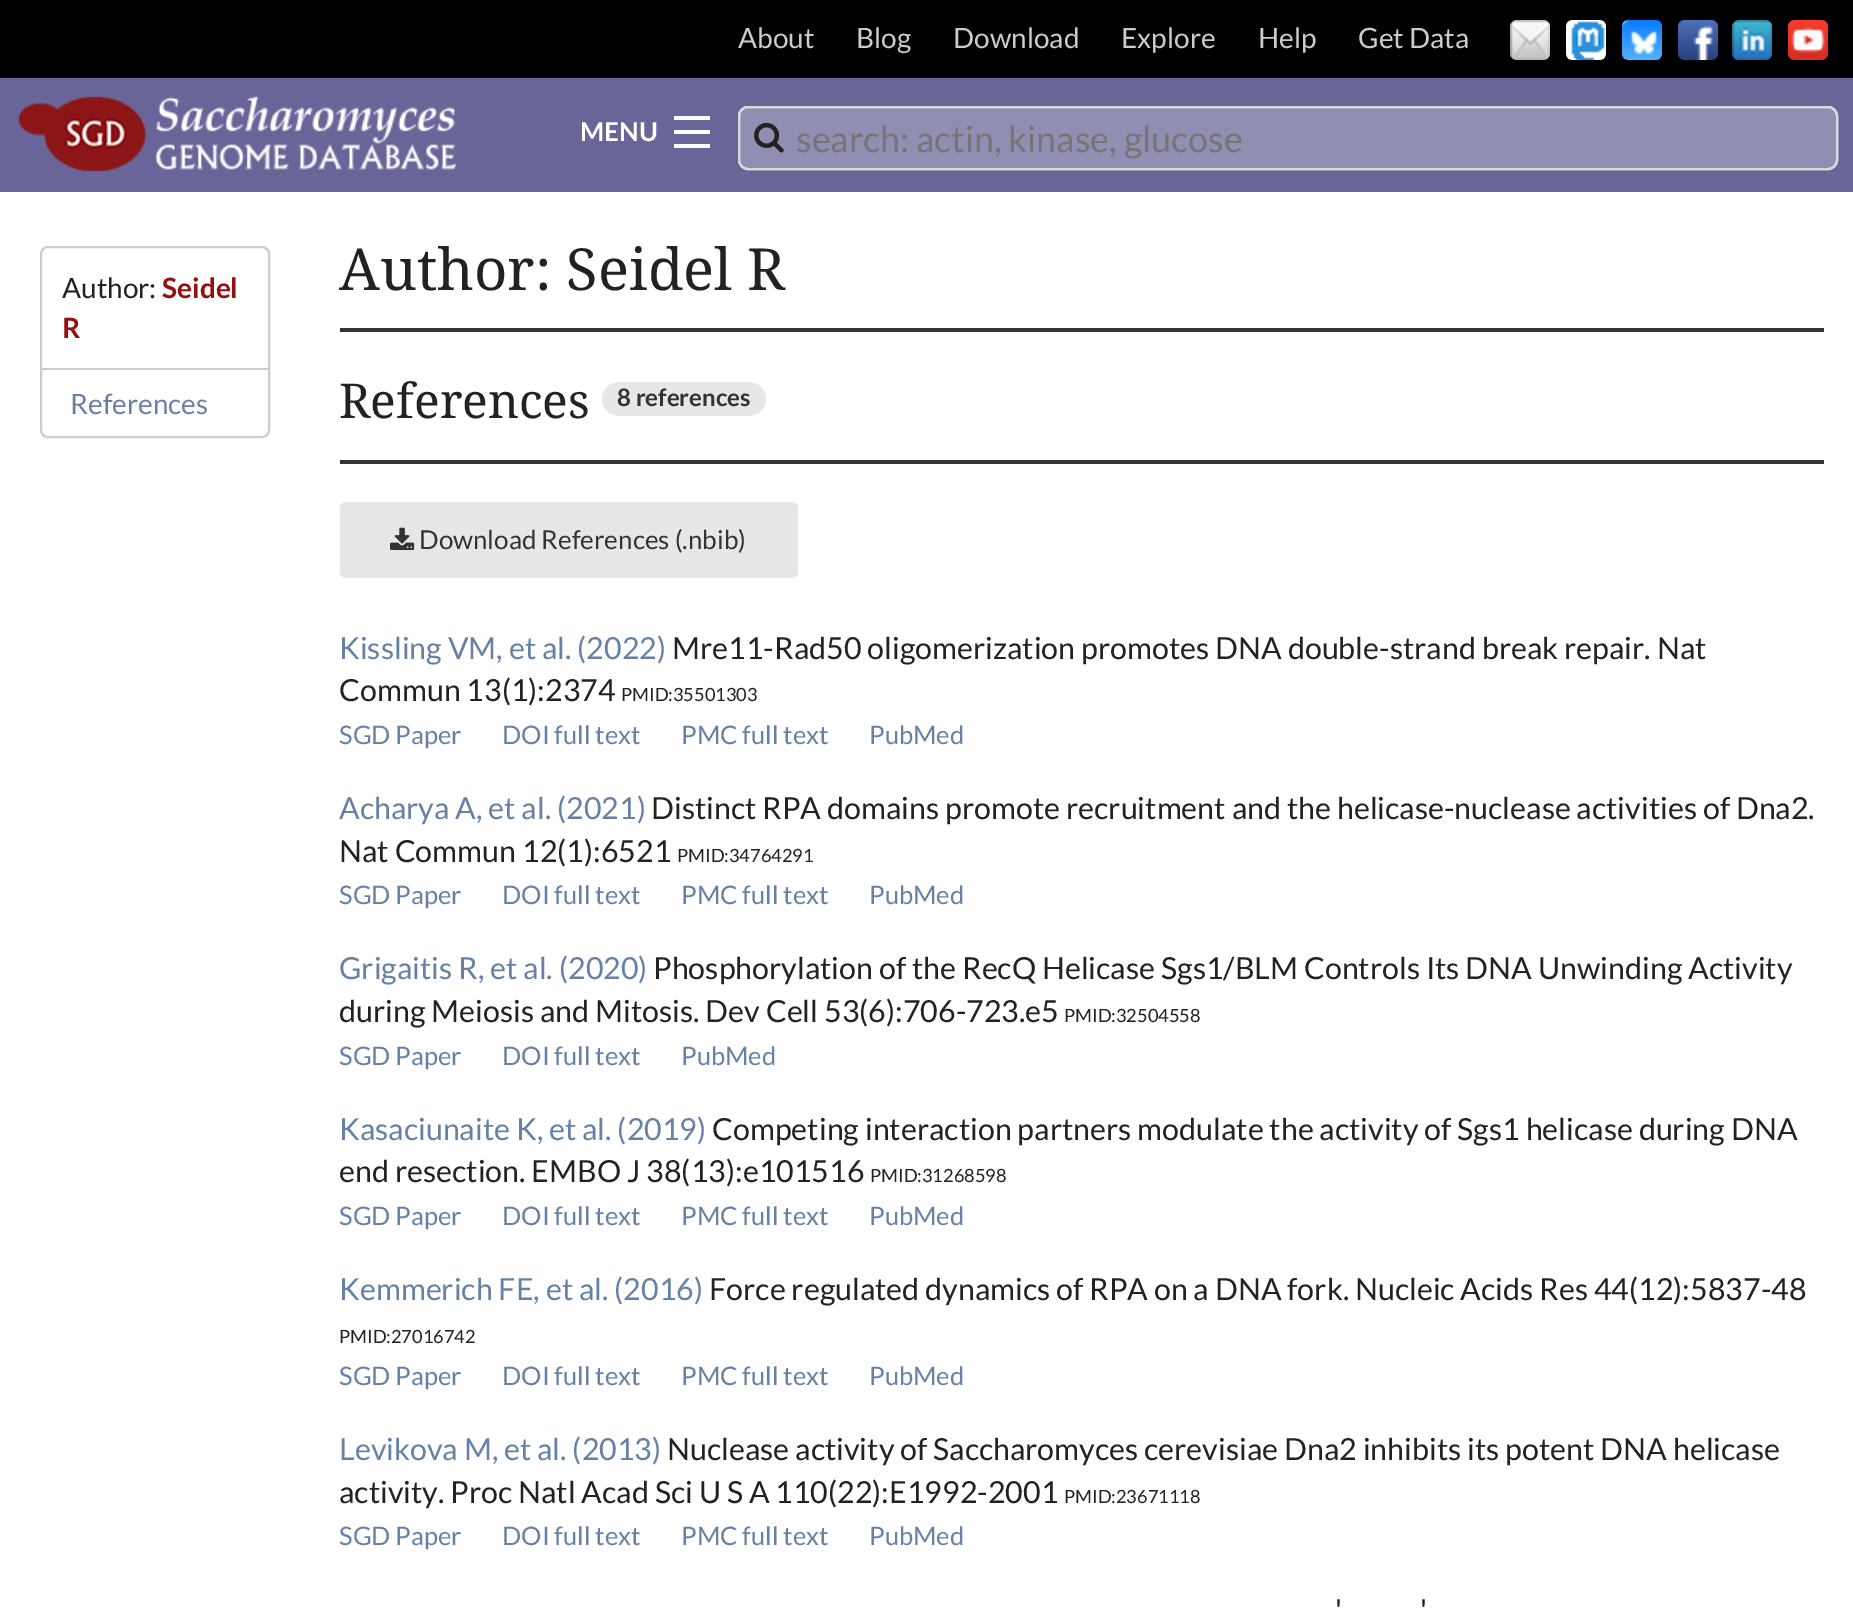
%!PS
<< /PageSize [1853 1613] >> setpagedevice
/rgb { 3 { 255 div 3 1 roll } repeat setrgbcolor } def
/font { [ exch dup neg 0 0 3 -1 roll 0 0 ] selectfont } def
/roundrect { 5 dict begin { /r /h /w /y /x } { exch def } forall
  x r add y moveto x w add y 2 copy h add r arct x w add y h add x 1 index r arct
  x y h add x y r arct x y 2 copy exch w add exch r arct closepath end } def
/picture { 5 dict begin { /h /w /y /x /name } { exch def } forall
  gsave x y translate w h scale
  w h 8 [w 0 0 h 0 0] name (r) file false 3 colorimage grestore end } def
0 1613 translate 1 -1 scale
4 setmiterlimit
255 255 255 rgb
0 0 1853 1613 rectfill
0 0 0 rgb
0 0 1853 78 rectfill
(img/1.rgb) 1510 20 40 40 picture
(img/2.rgb) 1566 20 40 40 picture
(img/3.rgb) 1622 20 40 40 picture
(img/4.rgb) 1678 20 40 40 picture
(img/5.rgb) 1732 20 40 40 picture
(img/6.rgb) 1788 20 40 40 picture
105 101 153 rgb
0 78 1853 114 rectfill
(img/7.rgb) 18 95 438 77 picture
[
  [674 144 36 4 255 255 255]
  [674 130 36 4 255 255 255]
  [674 116 36 4 255 255 255]
] { aload pop rgb rectfill } forall
145 142 179 rgb
739 107 1098 62 9 roundrect gsave fill grestore
217 217 217 rgb
2 setlinewidth
stroke
739 107 1098 62 9 roundrect stroke
(img/8.rgb) 754 122 30 31 picture
204 204 204 rgb
41 247 228 190 7 roundrect stroke
42 368 226 2 rectfill
51 51 51 rgb
340 328 1484 4 rectfill
231 231 231 rgb
602 382 164 34 17 roundrect fill
51 51 51 rgb
340 460 1484 4 rectfill
231 231 231 rgb
340 502 458 76 6 roundrect fill
(img/9.rgb) 390 527 25 23 picture
/Lato-Regular 28 font
204 204 204 rgb
[
  [(About) 738 48]
  [(Blog) 856 48]
  [(Download) 953 48]
  [(Explore) 1121 48]
  [(Help) 1258 48]
  [(Get Data) 1358 48]
] { aload pop moveto show } forall
/Lato-Bold 26 font
255 255 255 rgb
580 141 moveto (MENU) show
/Lato-Regular 36 font
117 117 117 rgb
796 152 moveto (search: actin, kinase, glucose) show
/Lato-Regular 28 font
34 34 34 rgb
62 298 moveto (Author:) show
/Lato-Bold 28 font
152 13 13 rgb
162 298 moveto (Seidel) show
62 338 moveto (R) show
/Lato-Regular 28 font
101 130 166 rgb
70 414 moveto (References) show
/DroidSerif-Regular 58 font
34 34 34 rgb
339 290 moveto (Author: Seidel R) show
/DroidSerif-Regular 48 font
339 418 moveto (References) show
/Lato-Bold 24 font
51 51 51 rgb
617 406 moveto (8 references) show
/Lato-Regular 26 font
419 549 moveto (Download References \(.nbib\)) show
/Lato-Regular 30.4 font
101 130 166 rgb
339 659 moveto (Kissling VM, et al. \(2022\)) show
34 34 34 rgb
672 659 moveto (Mre11-Rad50 oligomerization promotes DNA double-strand break repair. Nat) show
339 701 moveto (Commun 13\(1\):2374) show
/Lato-Regular 18.25 font
621 701 moveto (PMID:35501303) show
/Lato-Regular 25.5 font
101 130 166 rgb
[
  [(SGD Paper) 339 744]
  [(DOI full text) 502 744]
  [(PMC full text) 681 744]
  [(PubMed) 869 744]
] { aload pop moveto show } forall
/Lato-Regular 30.4 font
339 819 moveto (Acharya A, et al. \(2021\)) show
34 34 34 rgb
651 819 moveto (Distinct RPA domains promote recruitment and the helicase-nuclease activities of Dna2.) show
339 862 moveto (Nat Commun 12\(1\):6521) show
/Lato-Regular 18.25 font
677 862 moveto (PMID:34764291) show
/Lato-Regular 25.5 font
101 130 166 rgb
[
  [(SGD Paper) 339 904]
  [(DOI full text) 502 904]
  [(PMC full text) 681 904]
  [(PubMed) 869 904]
] { aload pop moveto show } forall
/Lato-Regular 30.4 font
339 979 moveto (Grigaitis R, et al. \(2020\)) show
34 34 34 rgb
653 979 moveto (Phosphorylation of the RecQ Helicase Sgs1/BLM Controls Its DNA Unwinding Activity) show
339 1022 moveto (during Meiosis and Mitosis. Dev Cell 53\(6\):706-723.e5) show
/Lato-Regular 18.25 font
1064 1022 moveto (PMID:32504558) show
/Lato-Regular 25.5 font
101 130 166 rgb
[
  [(SGD Paper) 339 1065]
  [(DOI full text) 502 1065]
  [(PubMed) 681 1065]
] { aload pop moveto show } forall
/Lato-Regular 30.4 font
339 1140 moveto (Kasaciunaite K, et al. \(2019\)) show
34 34 34 rgb
712 1140 moveto (Competing interaction partners modulate the activity of Sgs1 helicase during DNA) show
339 1182 moveto (end resection. EMBO J 38\(13\):e101516) show
/Lato-Regular 18.25 font
870 1182 moveto (PMID:31268598) show
/Lato-Regular 25.5 font
101 130 166 rgb
[
  [(SGD Paper) 339 1225]
  [(DOI full text) 502 1225]
  [(PMC full text) 681 1225]
  [(PubMed) 869 1225]
] { aload pop moveto show } forall
/Lato-Regular 30.4 font
339 1300 moveto (Kemmerich FE, et al. \(2016\)) show
34 34 34 rgb
709 1300 moveto (Force regulated dynamics of RPA on a DNA fork. Nucleic Acids Res 44\(12\):5837-48) show
/Lato-Regular 18.25 font
339 1343 moveto (PMID:27016742) show
/Lato-Regular 25.5 font
101 130 166 rgb
[
  [(SGD Paper) 339 1385]
  [(DOI full text) 502 1385]
  [(PMC full text) 681 1385]
  [(PubMed) 869 1385]
] { aload pop moveto show } forall
/Lato-Regular 30.4 font
339 1460 moveto (Levikova M, et al. \(2013\)) show
34 34 34 rgb
667 1460 moveto (Nuclease activity of Saccharomyces cerevisiae Dna2 inhibits its potent DNA helicase) show
339 1503 moveto (activity. Proc Natl Acad Sci U S A 110\(22\):E1992-2001) show
/Lato-Regular 18.25 font
1064 1503 moveto (PMID:23671118) show
/Lato-Regular 25.5 font
101 130 166 rgb
[
  [(SGD Paper) 339 1545]
  [(DOI full text) 502 1545]
  [(PMC full text) 681 1545]
  [(PubMed) 869 1545]
] { aload pop moveto show } forall
/Lato-Regular 30.4 font
34 34 34 rgb
1335 1621 moveto (') show
1420 1621 moveto (') show
showpage
